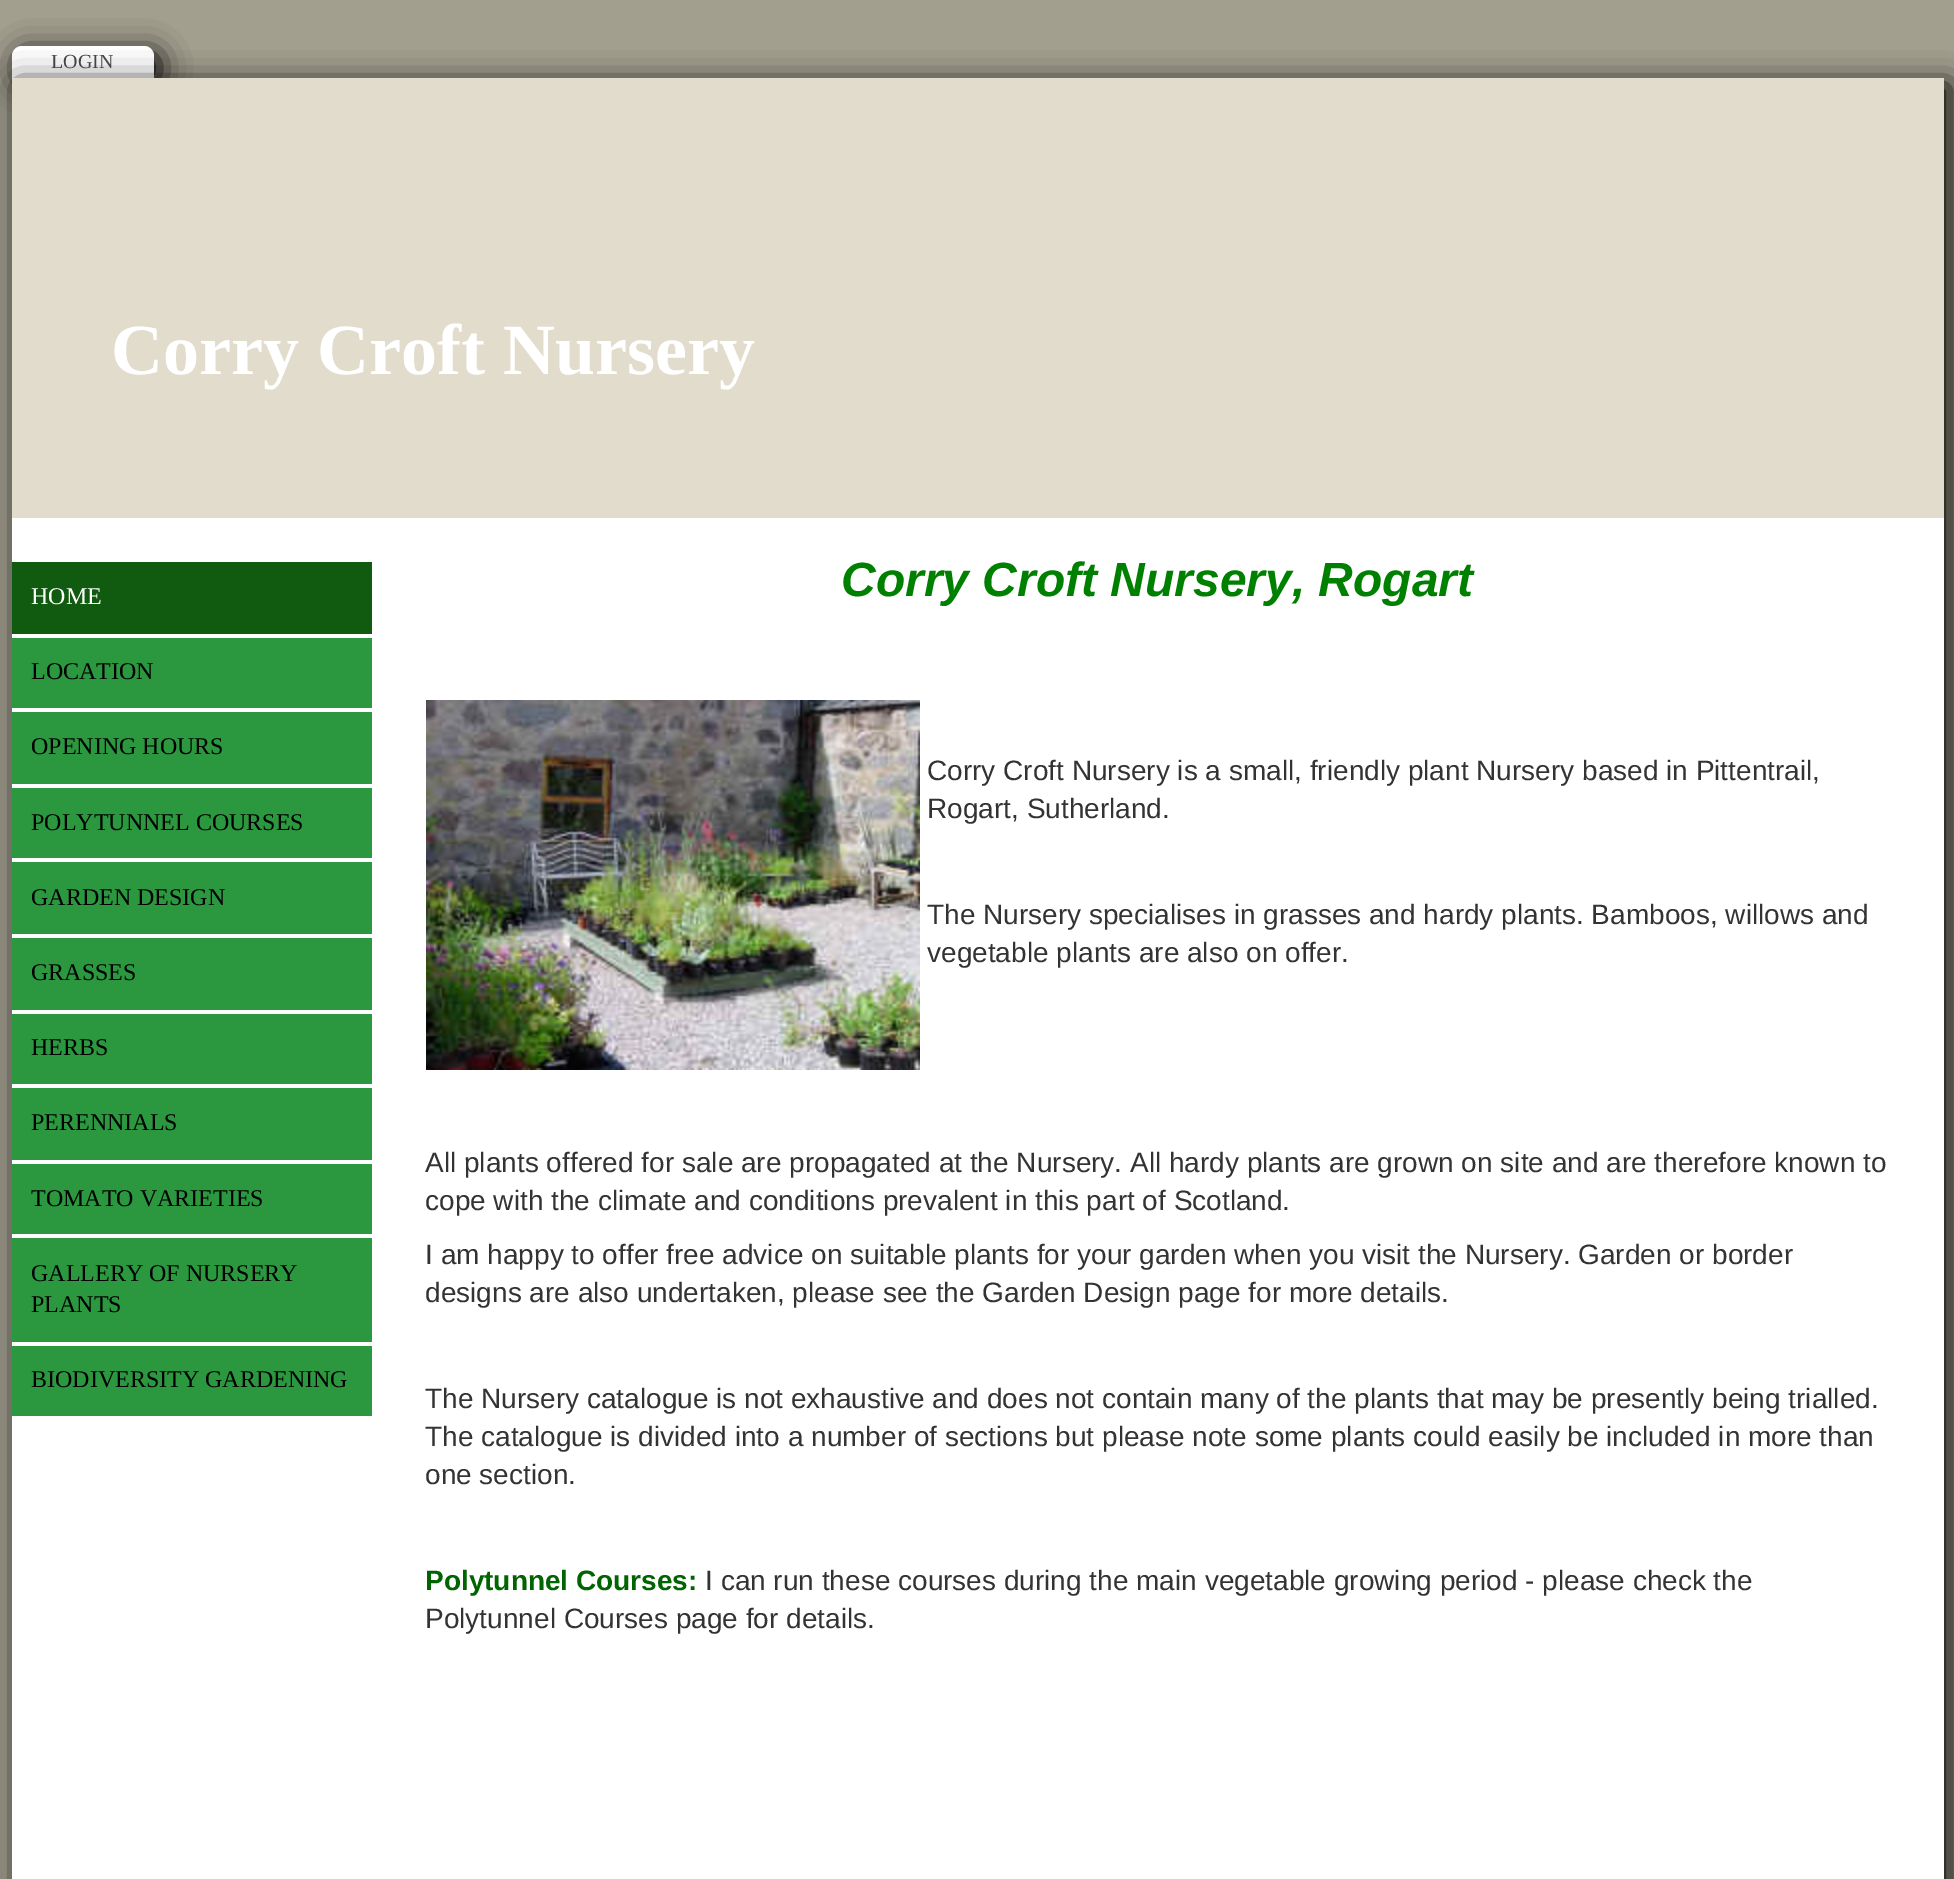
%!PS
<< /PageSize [1954 1879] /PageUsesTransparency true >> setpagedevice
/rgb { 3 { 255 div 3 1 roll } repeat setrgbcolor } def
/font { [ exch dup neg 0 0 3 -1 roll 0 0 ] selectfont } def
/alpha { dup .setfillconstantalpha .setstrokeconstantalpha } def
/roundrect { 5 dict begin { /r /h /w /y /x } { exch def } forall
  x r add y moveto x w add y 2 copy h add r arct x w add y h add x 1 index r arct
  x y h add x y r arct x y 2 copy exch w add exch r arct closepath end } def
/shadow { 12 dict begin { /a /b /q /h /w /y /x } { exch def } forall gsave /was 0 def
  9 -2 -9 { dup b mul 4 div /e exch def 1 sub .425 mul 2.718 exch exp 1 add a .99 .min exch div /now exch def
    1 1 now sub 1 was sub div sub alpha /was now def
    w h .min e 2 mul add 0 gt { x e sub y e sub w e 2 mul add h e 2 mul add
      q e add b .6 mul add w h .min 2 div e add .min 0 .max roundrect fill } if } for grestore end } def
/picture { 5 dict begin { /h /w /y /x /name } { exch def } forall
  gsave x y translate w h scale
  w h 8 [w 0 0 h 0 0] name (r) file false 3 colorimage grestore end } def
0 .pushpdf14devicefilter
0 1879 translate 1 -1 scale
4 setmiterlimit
162 159 142 rgb
0 0 1954 1879 rectfill
0 0 0 rgb
18 52 142 32 10 15 1 shadow
255 255 255 rgb
22 46 moveto 144 46 lineto 149.5 46 154 50.5 154 56 curveto 154 78 lineto 12 78 lineto 12 56 lineto 12 50.5 16.5 46 22 46 curveto closepath fill
0 0 0 rgb
18 84 1932 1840 0 15 1 shadow
[
  [12 518 1932 1361 255 255 255]
  [12 78 1932 440 226 220 204]
  [12 562 360 72 16 91 16]
  [12 638 360 70 43 151 63]
  [12 712 360 72 43 151 63]
  [12 788 360 70 43 151 63]
  [12 862 360 72 43 151 63]
  [12 938 360 72 43 151 63]
  [12 1014 360 70 43 151 63]
  [12 1088 360 72 43 151 63]
  [12 1164 360 70 43 151 63]
  [12 1238 360 104 43 151 63]
  [12 1346 360 70 43 151 63]
] { aload pop rgb rectfill } forall
(img/1.rgb) 426 700 494 370 picture
/LiberationSerif-Regular 20 font
68 68 68 rgb
51 68 moveto (LOGIN) show
/LiberationSerif-Bold 72 font
255 255 255 rgb
111 374 moveto (Corry Croft Nursery) show
/LiberationSerif-Regular 24 font
31 604 moveto (HOME) show
0 0 0 rgb
[
  [(LOCATION) 31 679]
  [(OPENING HOURS) 31 754]
  [(POLYTUNNEL COURSES) 31 830]
  [(GARDEN DESIGN) 31 905]
  [(GRASSES) 31 980]
  [(HERBS) 31 1055]
  [(PERENNIALS) 31 1130]
  [(TOMATO VARIETIES) 31 1206]
  [(GALLERY OF NURSERY) 31 1281]
  [(PLANTS) 31 1312]
  [(BIODIVERSITY GARDENING) 31 1387]
] { aload pop moveto show } forall
/LiberationSans-BoldItalic 48 font
0 128 0 rgb
841 596 moveto (Corry Croft Nursery, Rogart) show
/LiberationSans-Regular 28 font
51 51 51 rgb
[
  [(Corry Croft Nursery is a small, friendly plant Nursery based in Pittentrail,) 927 780]
  [(Rogart, Sutherland.) 927 818]
  [(The Nursery specialises in grasses and hardy plants. Bamboos, willows and) 927 924]
  [(vegetable plants are also on offer.) 927 962]
  [(All plants offered for sale are propagated at the Nursery. All hardy plants are grown on site and are therefore known to) 425 1172]
  [(cope with the climate and conditions prevalent in this part of Scotland.) 425 1210]
  [(I am happy to offer free advice on suitable plants for your garden when you visit the Nursery. Garden or border) 425 1264]
  [(designs are also undertaken, please see the Garden Design page for more details.) 425 1302]
  [(The Nursery catalogue is not exhaustive and does not contain many of the plants that may be presently being trialled.) 425 1408]
  [(The catalogue is divided into a number of sections but please note some plants could easily be included in more than) 425 1446]
  [(one section.) 425 1484]
] { aload pop moveto show } forall
/LiberationSans-Bold 28 font
0 100 0 rgb
425 1590 moveto (Polytunnel Courses:) show
/LiberationSans-Regular 28 font
51 51 51 rgb
705 1590 moveto (I can run these courses during the main vegetable growing period - please check the) show
425 1628 moveto (Polytunnel Courses page for details.) show
.poppdf14devicefilter showpage
